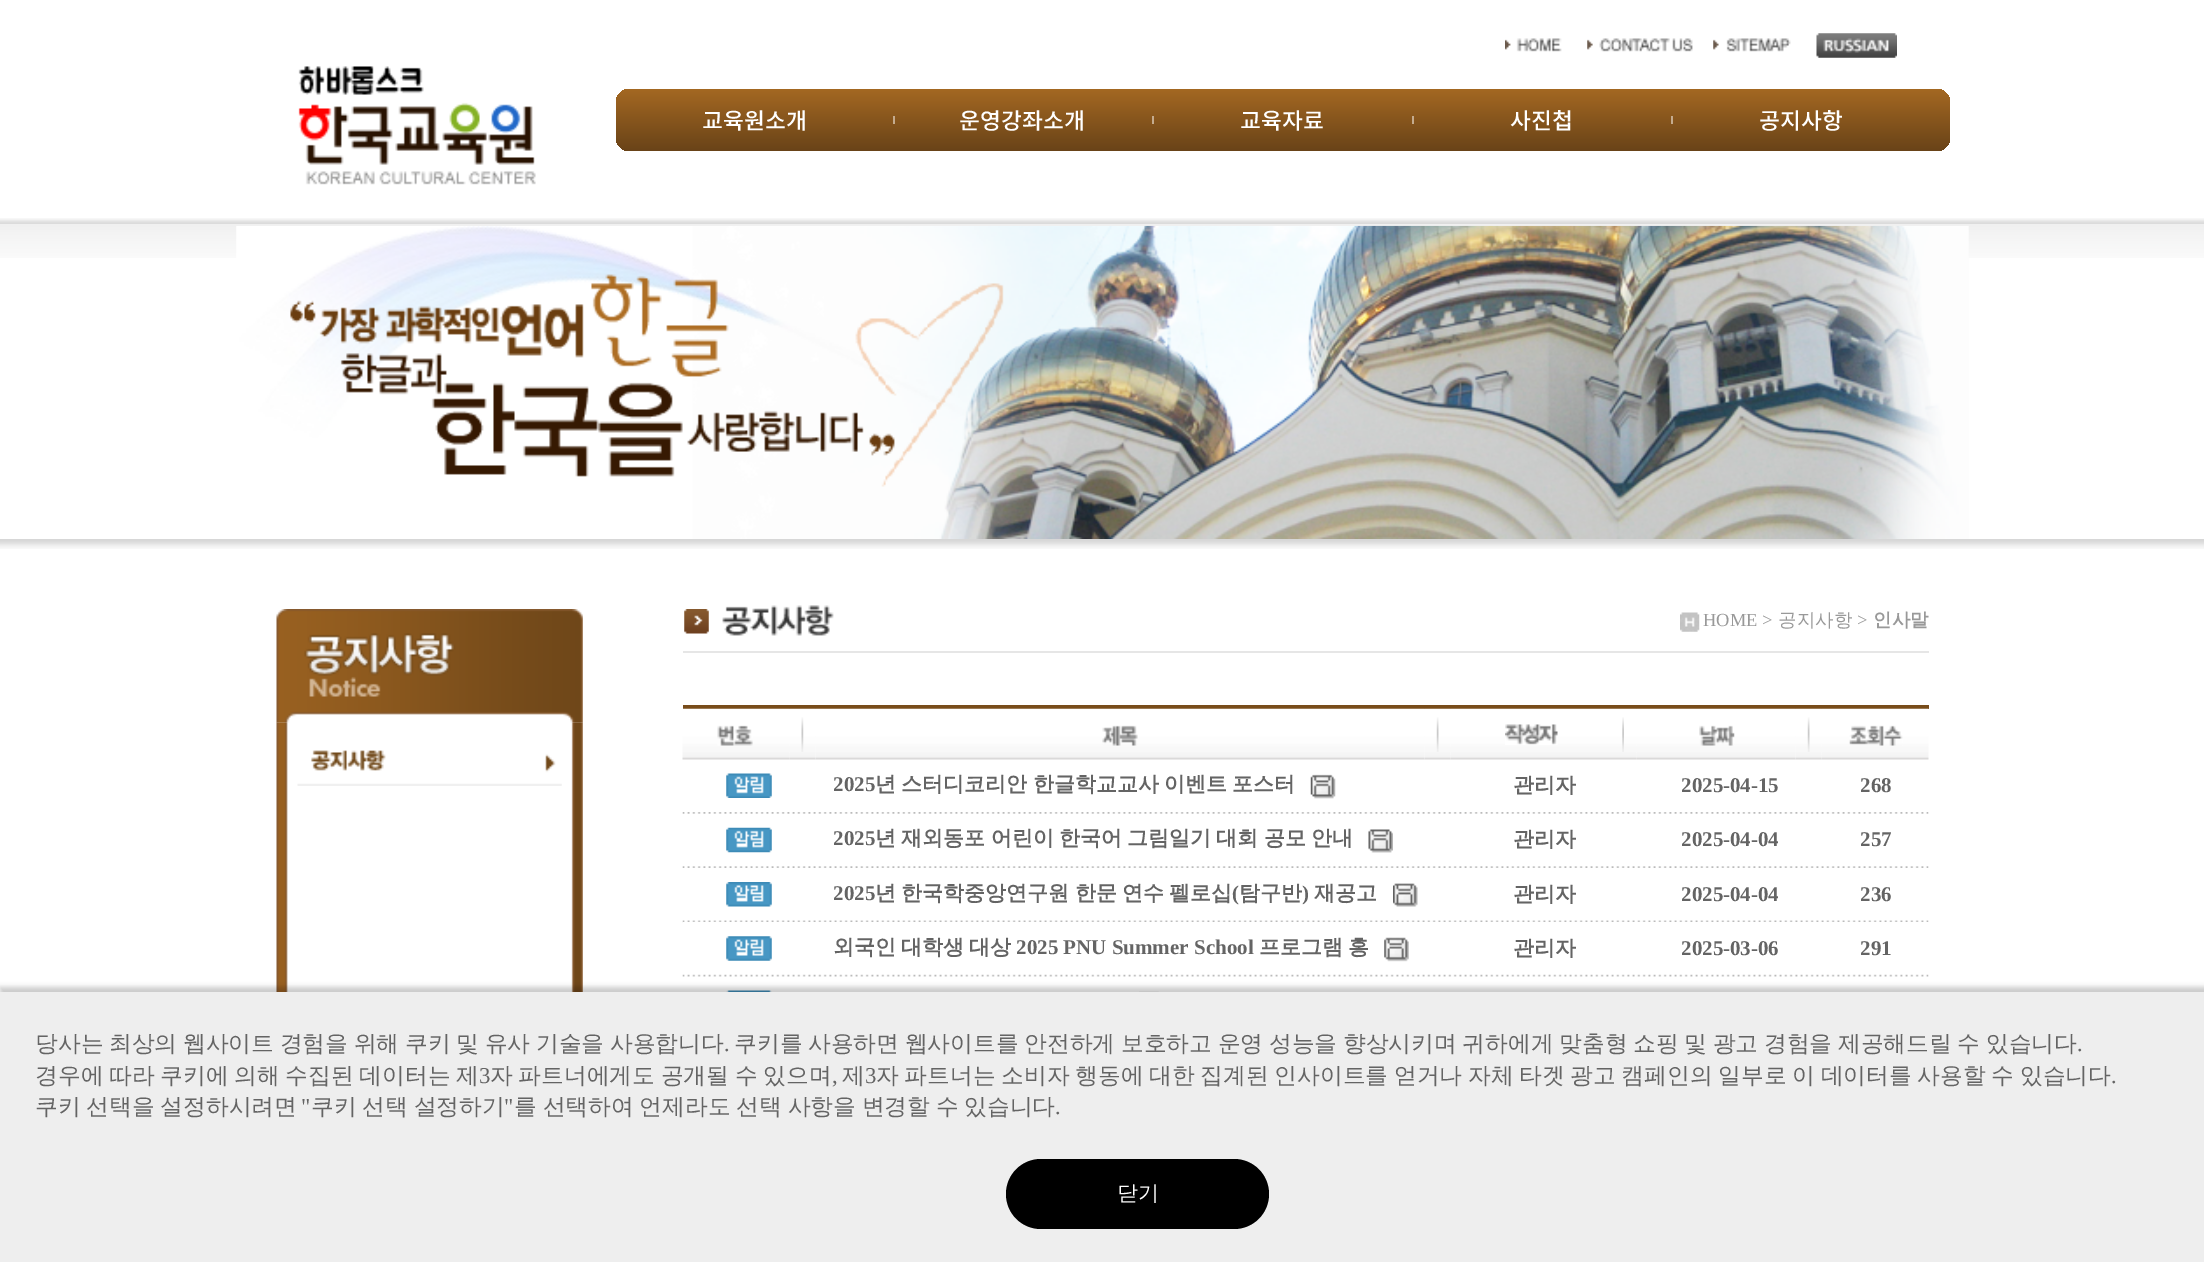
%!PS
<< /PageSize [2204 1262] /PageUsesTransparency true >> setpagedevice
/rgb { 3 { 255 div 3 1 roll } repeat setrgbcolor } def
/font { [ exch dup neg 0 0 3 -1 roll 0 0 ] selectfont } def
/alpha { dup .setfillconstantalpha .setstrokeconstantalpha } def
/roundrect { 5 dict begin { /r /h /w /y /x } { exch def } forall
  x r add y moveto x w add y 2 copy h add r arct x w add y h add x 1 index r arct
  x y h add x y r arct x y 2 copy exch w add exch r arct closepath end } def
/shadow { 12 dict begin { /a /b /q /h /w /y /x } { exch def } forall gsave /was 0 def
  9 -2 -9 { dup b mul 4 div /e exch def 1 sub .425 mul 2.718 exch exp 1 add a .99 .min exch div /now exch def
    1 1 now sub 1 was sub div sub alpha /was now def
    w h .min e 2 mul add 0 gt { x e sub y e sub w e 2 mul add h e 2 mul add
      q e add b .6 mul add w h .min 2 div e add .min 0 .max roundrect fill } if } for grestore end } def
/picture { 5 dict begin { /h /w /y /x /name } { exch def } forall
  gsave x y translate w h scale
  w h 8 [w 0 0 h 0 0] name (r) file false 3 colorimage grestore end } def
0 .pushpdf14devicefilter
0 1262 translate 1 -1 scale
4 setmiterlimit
255 255 255 rgb
0 0 2204 1262 rectfill
(img/1.rgb) 0 218 2204 6 picture
(img/2.rgb) 298 66 238 119 picture
(img/3.rgb) 1505 38 57 14 picture
(img/4.rgb) 1587 38 106 14 picture
(img/5.rgb) 1713 38 78 14 picture
(img/6.rgb) 1816 33 81 25 picture
gsave 616 89 1334 62 14 roundrect clip newpath
<< /ShadingType 2 /ColorSpace /DeviceRGB /Coords [1283 89 1283 151] /Extend [true true] /Function << /FunctionType 2 /Domain [0 1] /C0 [0.643 0.408 0.133] /C1 [0.412 0.263 0.094] /N 1 >> >> shfill grestore
[
  [893 116 2 8 196 171 142]
  [1152 116 2 8 196 171 142]
  [1412 116 2 8 196 171 142]
  [1671 116 2 8 196 171 142]
] { aload pop rgb rectfill } forall
(img/7.rgb) 0 224 2204 34 picture
(img/8.rgb) 236 225 1733 314 picture
(img/9.rgb) 0 539 2204 10 picture
(img/11.rgb) 276 722 307 270 picture
(img/10.rgb) 276 609 307 114 picture
(img/12.rgb) 297 750 265 36 picture
230 230 230 rgb
683 651 1246 2 rectfill
(img/13.rgb) 684 609 25 25 picture
(img/14.rgb) 722 605 112 31 picture
(img/15.rgb) 1680 612 20 20 picture
120 76 26 rgb
683 705 1246 4 rectfill
(img/16.rgb) 682 708 108 52 picture
(img/17.rgb) 717 725 36 21 picture
(img/18.rgb) 789 708 27 52 picture
(img/19.rgb) 801 717 3 35 picture
(img/20.rgb) 815 708 610 52 picture
(img/21.rgb) 1102 725 36 21 picture
(img/22.rgb) 1424 708 27 52 picture
(img/23.rgb) 1436 717 3 35 picture
(img/24.rgb) 1450 708 160 52 picture
(img/25.rgb) 1505 724 53 21 picture
(img/26.rgb) 1610 708 27 52 picture
(img/27.rgb) 1622 717 2 35 picture
(img/28.rgb) 1636 708 160 52 picture
(img/29.rgb) 1699 725 36 21 picture
(img/22.rgb) 1795 708 27 52 picture
(img/23.rgb) 1807 717 3 35 picture
(img/30.rgb) 1821 708 108 52 picture
(img/31.rgb) 1849 725 54 21 picture
(img/32.rgb) 726 773 46 25 picture
(img/33.rgb) 1310 774 26 25 picture
(img/34.rgb) 682 812 1247 2 picture
(img/35.rgb) 726 827 46 26 picture
(img/36.rgb) 1368 829 25 24 picture
(img/37.rgb) 682 866 1247 2 picture
(img/38.rgb) 726 882 46 25 picture
(img/39.rgb) 1393 883 25 24 picture
(img/40.rgb) 682 920 1247 3 picture
255 255 255 rgb
683 922 1246 1 rectfill
(img/41.rgb) 726 936 46 25 picture
(img/42.rgb) 1384 937 25 25 picture
(img/43.rgb) 682 974 1247 3 picture
(img/44.rgb) 726 990 46 2 picture
(img/45.rgb) 1139 991 20 1 picture
0 0 0 rgb
0 987 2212 271 0 2.5 0.2 shadow
238 238 238 rgb
0 992 2204 270 rectfill
0 0 0 rgb
1006 1159 263 70 35 roundrect fill
/NotoSansKR-Medium 22.75 font
255 255 255 rgb
[
  [(교육원소개) 702 129]
  [(운영강좌소개) 959 129]
  [(교육자료) 1240 129]
  [(사진첩) 1510 129]
  [(공지사항) 1759 129]
] { aload pop moveto show } forall
/LiberationSerif-Regular 18.5 font
153 153 153 rgb
1703 626 moveto (HOME >) show
/WenQuanYiZenHei-Medium 18.5 font
1778 626 moveto (공지사항) show
/LiberationSerif-Regular 18.5 font
1857 626 moveto (>) show
/WenQuanYiZenHei-Bold 18.5 font
1873 626 moveto (인사말) show
/LiberationSerif-Bold 21 font
100 100 100 rgb
833 791 moveto (2025) show
/WenQuanYiZenHei-Bold 21 font
875 791 moveto -1 0 32 (년 스터디코리안 한글학교교사 이벤트 포스터) widthshow
1513 792 moveto (관리자) show
/LiberationSerif-Bold 21 font
[
  [(2025-04-15) 1681 792]
  [(268) 1860 792]
  [(2025) 833 845]
] { aload pop moveto show } forall
/WenQuanYiZenHei-Bold 21 font
875 845 moveto -1 0 32 (년 재외동포 어린이 한국어 그림일기 대회 공모 안내) widthshow
1513 846 moveto (관리자) show
/LiberationSerif-Bold 21 font
[
  [(2025-04-04) 1681 846]
  [(257) 1860 846]
  [(2025) 833 900]
] { aload pop moveto show } forall
/WenQuanYiZenHei-Bold 21 font
875 900 moveto -1 0 32 (년 한국학중앙연구원 한문 연수 펠로십) widthshow
/LiberationSerif-Bold 21 font
1232 900 moveto (\() show
/WenQuanYiZenHei-Bold 21 font
1239 900 moveto (탐구반) show
/LiberationSerif-Bold 21 font
1302 900 moveto (\)) show
/WenQuanYiZenHei-Bold 21 font
1314 900 moveto (재공고) show
1513 901 moveto (관리자) show
/LiberationSerif-Bold 21 font
1681 901 moveto (2025-04-04) show
1860 901 moveto (236) show
/WenQuanYiZenHei-Bold 21 font
[
  [(외국인) 833 954]
  [(대학생) 901 954]
  [(대상) 969 954]
] { aload pop moveto show } forall
/LiberationSerif-Bold 21 font
1016 954 moveto (2025 PNU Summer School) show
/WenQuanYiZenHei-Bold 21 font
[
  [(프로그램) 1259 954]
  [(홍) 1348 954]
  [(관리자) 1513 955]
] { aload pop moveto show } forall
/LiberationSerif-Bold 21 font
1681 955 moveto (2025-03-06) show
1860 955 moveto (291) show
/WenQuanYiZenHei-Medium 22.75 font
35 1051 moveto -1.1 0 32 (당사는 최상의 웹사이트 경험을 위해 쿠키 및 유사 기술을 사용합니다) widthshow
/LiberationSerif-Regular 22.75 font
724 1051 moveto (.) show
/WenQuanYiZenHei-Medium 22.75 font
734 1051 moveto -1.1 0 32 (쿠키를 사용하면 웹사이트를 안전하게 보호하고 운영 성능을 향상시키며 귀하에게 맞춤형 쇼핑 및 광고 경험을 제공해드릴 수 있습니다) widthshow
/LiberationSerif-Regular 22.75 font
2077 1051 moveto (.) show
/WenQuanYiZenHei-Medium 22.75 font
35 1083 moveto -1.1 0 32 (경우에 따라 쿠키에 의해 수집된 데이터는 제) widthshow
/LiberationSerif-Regular 22.75 font
479 1083 moveto (3) show
/WenQuanYiZenHei-Medium 22.75 font
490 1083 moveto -1.1 0 32 (자 파트너에게도 공개될 수 있으며) widthshow
/LiberationSerif-Regular 22.75 font
832 1083 moveto (,) show
/WenQuanYiZenHei-Medium 22.75 font
842 1083 moveto (제) show
/LiberationSerif-Regular 22.75 font
865 1083 moveto (3) show
/WenQuanYiZenHei-Medium 22.75 font
876 1083 moveto -1.1 0 32 (자 파트너는 소비자 행동에 대한 집계된 인사이트를 얻거나 자체 타겟 광고 캠페인의 일부로 이 데이터를 사용할 수 있습니다) widthshow
/LiberationSerif-Regular 22.75 font
2111 1083 moveto (.) show
/WenQuanYiZenHei-Medium 22.75 font
35 1114 moveto -1 0 32 (쿠키 선택을 설정하시려면) widthshow
/LiberationSerif-Regular 22.75 font
301 1114 moveto (") show
/WenQuanYiZenHei-Medium 22.75 font
311 1114 moveto -1 0 32 (쿠키 선택 설정하기) widthshow
/LiberationSerif-Regular 22.75 font
504 1114 moveto (") show
/WenQuanYiZenHei-Medium 22.75 font
514 1114 moveto -1 0 32 (를 선택하여 언제라도 선택 사항을 변경할 수 있습니다) widthshow
/LiberationSerif-Regular 22.75 font
1055 1114 moveto (.) show
/WenQuanYiZenHei-Medium 21 font
255 255 255 rgb
1117 1200 moveto (닫기) show
.poppdf14devicefilter showpage
